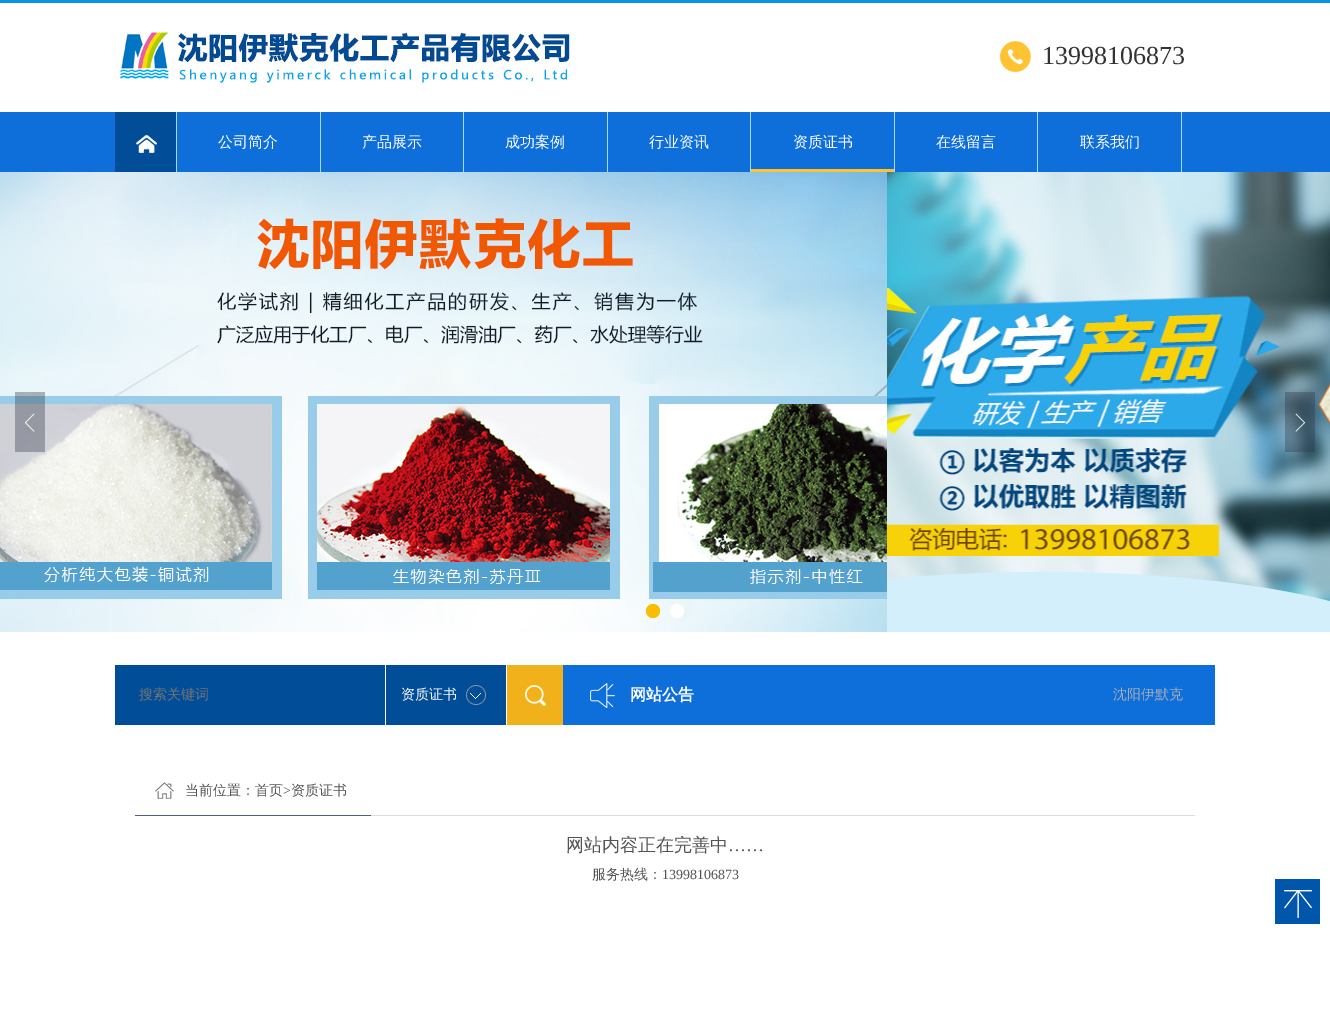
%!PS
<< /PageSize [1330 1034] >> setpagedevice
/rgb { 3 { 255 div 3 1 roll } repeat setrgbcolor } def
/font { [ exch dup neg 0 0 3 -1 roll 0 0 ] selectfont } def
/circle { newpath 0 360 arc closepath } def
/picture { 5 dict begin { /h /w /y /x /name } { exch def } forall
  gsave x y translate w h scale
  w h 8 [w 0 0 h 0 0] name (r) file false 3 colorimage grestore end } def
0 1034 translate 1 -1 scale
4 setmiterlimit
255 255 255 rgb
0 0 1330 1034 rectfill
10 146 232 rgb
0 0 1330 3 rectfill
(img/1.rgb) 115 32 456 53 picture
(img/2.rgb) 1000 41 31 31 picture
14 111 218 rgb
0 112 1330 60 rectfill
162 219 254 rgb
176 112 1 61 rectfill
(img/3.rgb) 115 112 61 60 picture
[
  [320 112 1 61 162 219 254]
  [463 112 1 61 162 219 254]
  [607 112 1 61 162 219 254]
  [750 112 1 61 162 219 254]
  [894 112 1 61 162 219 254]
  [751 169 143 3 255 194 49]
  [1037 112 1 61 162 219 254]
  [1181 112 1 61 162 219 254]
] { aload pop rgb rectfill } forall
(img/4.rgb) 0 172 887 460 picture
(img/5.rgb) 887 172 443 460 picture
(img/6.rgb) 15 392 30 60 picture
(img/7.rgb) 1285 392 30 60 picture
250 190 0 rgb
653 611 7 circle fill
255 255 255 rgb
677 611 7 circle fill
[
  [563 665 652 60 14 111 218]
  [115 665 270 60 1 77 151]
  [386 665 120 60 1 77 151]
] { aload pop rgb rectfill } forall
(img/8.rgb) 466 685 20 20 picture
241 177 26 rgb
507 665 56 60 rectfill
(img/9.rgb) 525 685 21 21 picture
(img/10.rgb) 590 683 25 25 picture
221 221 221 rgb
371 815 824 1 rectfill
(img/11.rgb) 155 782 19 17 picture
79 94 134 rgb
135 815 236 1 rectfill
(img/12.rgb) 1275 879 45 45 picture
/LiberationSerif-Regular 26 font
51 51 51 rgb
1042 64 moveto (13998106873) show
/WenQuanYiZenHei-Medium 15 font
255 255 255 rgb
[
  [(公司简介) 218 147]
  [(产品展示) 362 147]
  [(成功案例) 505 147]
  [(行业资讯) 649 147]
  [(资质证书) 793 147]
  [(在线留言) 936 147]
  [(联系我们) 1080 147]
] { aload pop moveto show } forall
/WenQuanYiZenHei-Medium 14 font
117 117 117 rgb
139 699 moveto (搜索关键词) show
255 255 255 rgb
401 699 moveto (资质证书) show
/WenQuanYiZenHei-Bold 16 font
630 700 moveto (网站公告) show
/WenQuanYiZenHei-Medium 14 font
168 172 182 rgb
1113 699 moveto (沈阳伊默克) show
83 83 83 rgb
185 795 moveto (当前位置：首页) show
/LiberationSerif-Regular 14 font
283 795 moveto (>) show
/WenQuanYiZenHei-Medium 14 font
291 795 moveto (资质证书) show
/WenQuanYiZenHei-Medium 18 font
566 851 moveto (网站内容正在完善中) show
/LiberationSerif-Regular 18 font
728 851 moveto (……) show
/WenQuanYiZenHei-Medium 14 font
592 879 moveto (服务热线：) show
/LiberationSerif-Regular 14 font
662 879 moveto (13998106873) show
showpage
